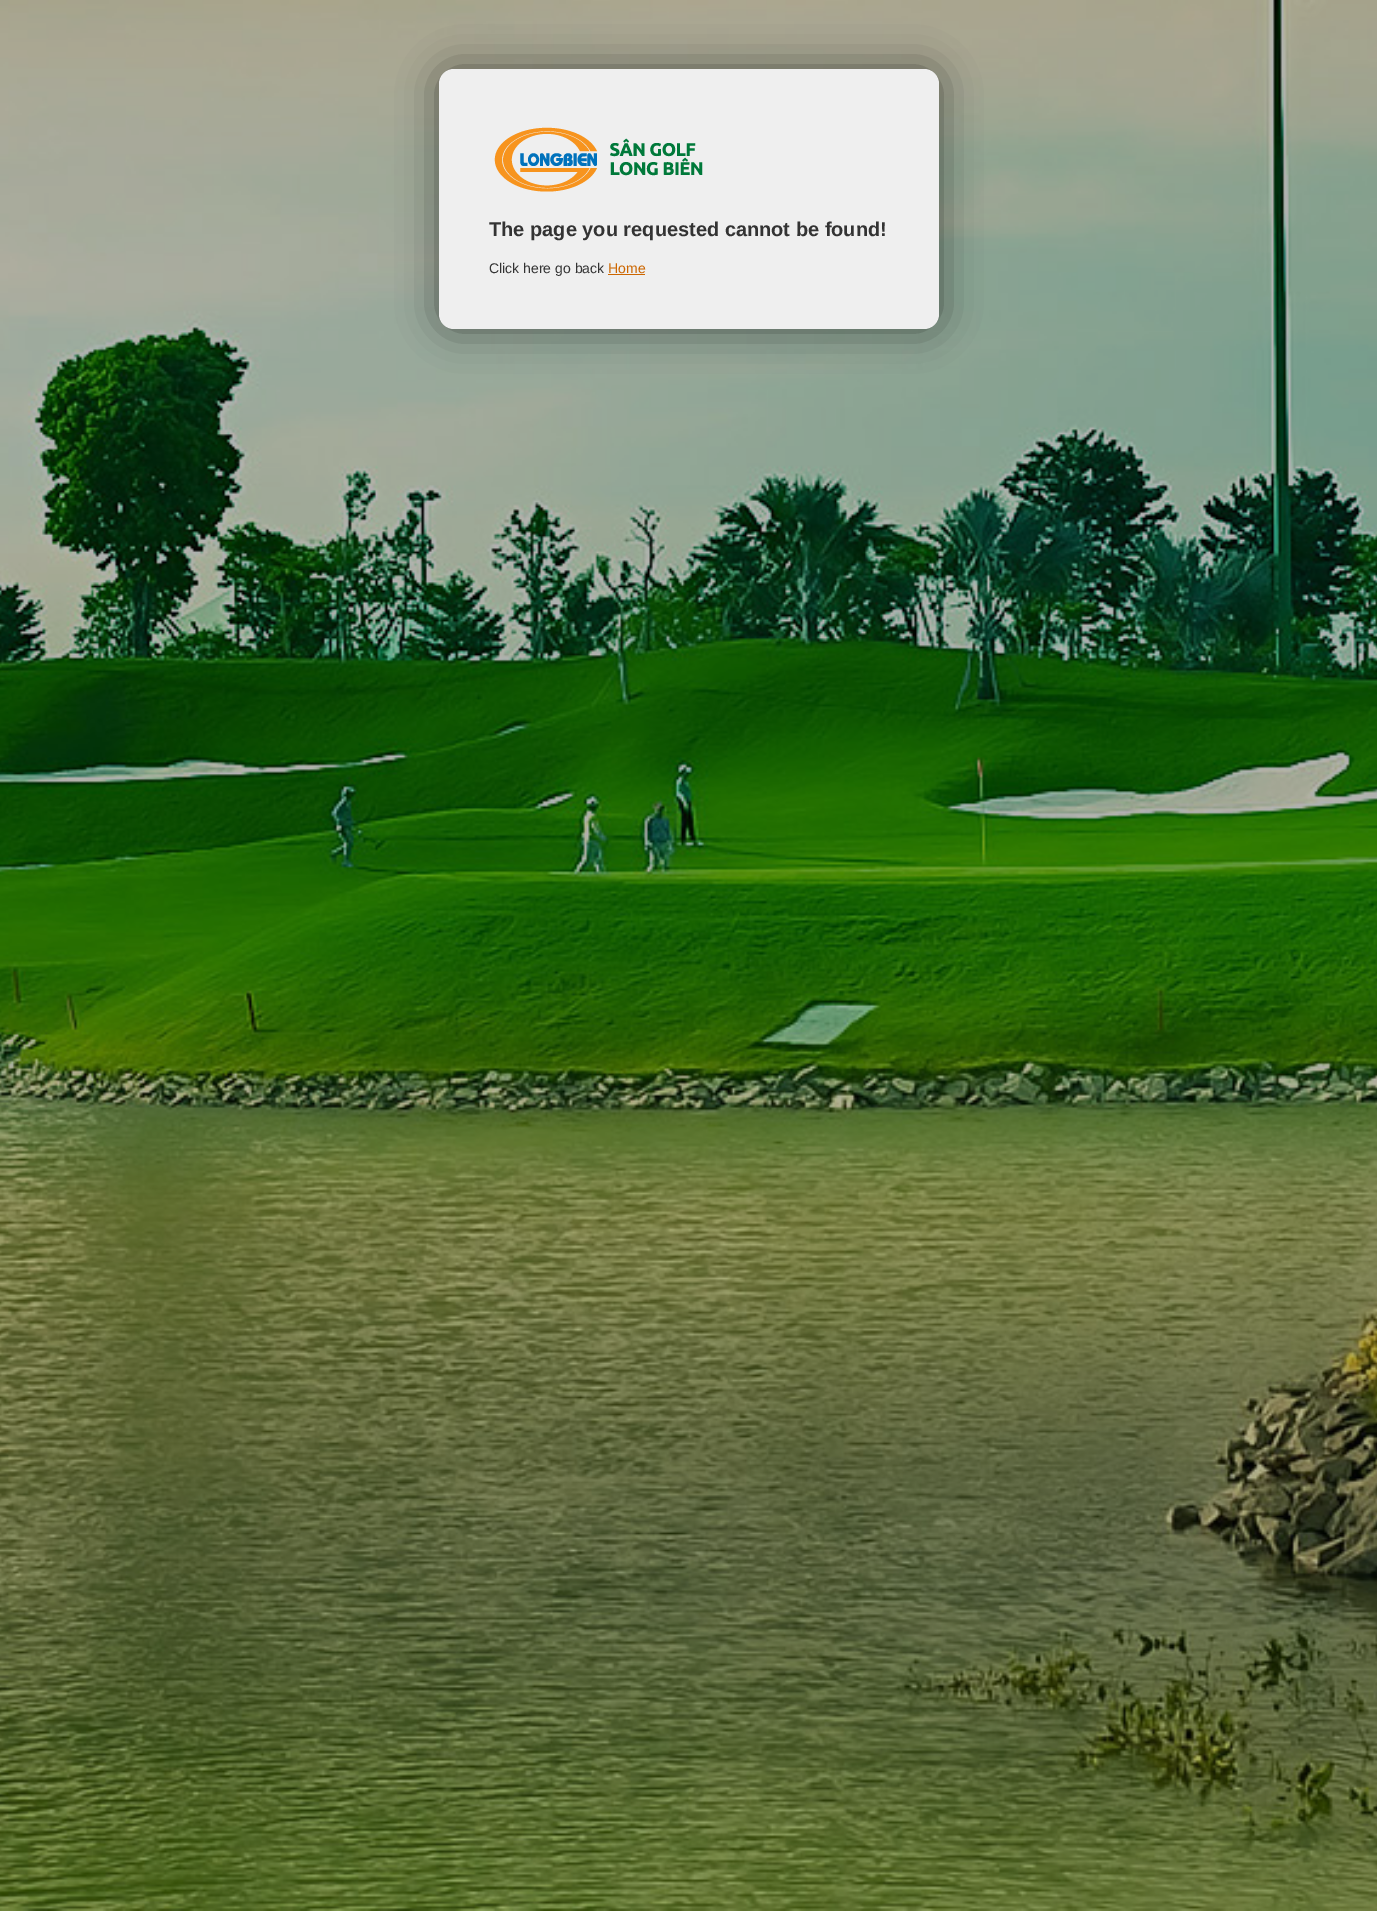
%!PS
<< /PageSize [1377 1911] /PageUsesTransparency true >> setpagedevice
/rgb { 3 { 255 div 3 1 roll } repeat setrgbcolor } def
/font { [ exch dup neg 0 0 3 -1 roll 0 0 ] selectfont } def
/alpha { dup .setfillconstantalpha .setstrokeconstantalpha } def
/roundrect { 5 dict begin { /r /h /w /y /x } { exch def } forall
  x r add y moveto x w add y 2 copy h add r arct x w add y h add x 1 index r arct
  x y h add x y r arct x y 2 copy exch w add exch r arct closepath end } def
/shadow { 12 dict begin { /a /b /q /h /w /y /x } { exch def } forall gsave /was 0 def
  9 -2 -9 { dup b mul 4 div /e exch def 1 sub .425 mul 2.718 exch exp 1 add a .99 .min exch div /now exch def
    1 1 now sub 1 was sub div sub alpha /was now def
    w h .min e 2 mul add 0 gt { x e sub y e sub w e 2 mul add h e 2 mul add
      q e add b .6 mul add w h .min 2 div e add .min 0 .max roundrect fill } if } for grestore end } def
/picture { 5 dict begin { /h /w /y /x /name } { exch def } forall
  gsave x y translate w h scale
  w h 8 [w 0 0 h 0 0] name (r) file false 3 colorimage grestore end } def
0 .pushpdf14devicefilter
0 1911 translate 1 -1 scale
4 setmiterlimit
255 255 255 rgb
0 0 1377 1911 rectfill
(img/1.rgb) 0 0 1377 1911 picture
0 0 0 rgb
439 69 500 260 15 20 0.5 shadow
239 239 239 rgb
439 69 500 260 15 roundrect fill
(img/2.rgb) 494 127 209 65 picture
204 102 0 rgb
608 274 37 1 rectfill
/LiberationSans-Bold 20 font
51 51 51 rgb
489 236 moveto (The page you requested cannot be found!) show
/LiberationSans-Regular 14 font
489 273 moveto (Click here go back) show
204 102 0 rgb
608 273 moveto (Home) show
.poppdf14devicefilter showpage
